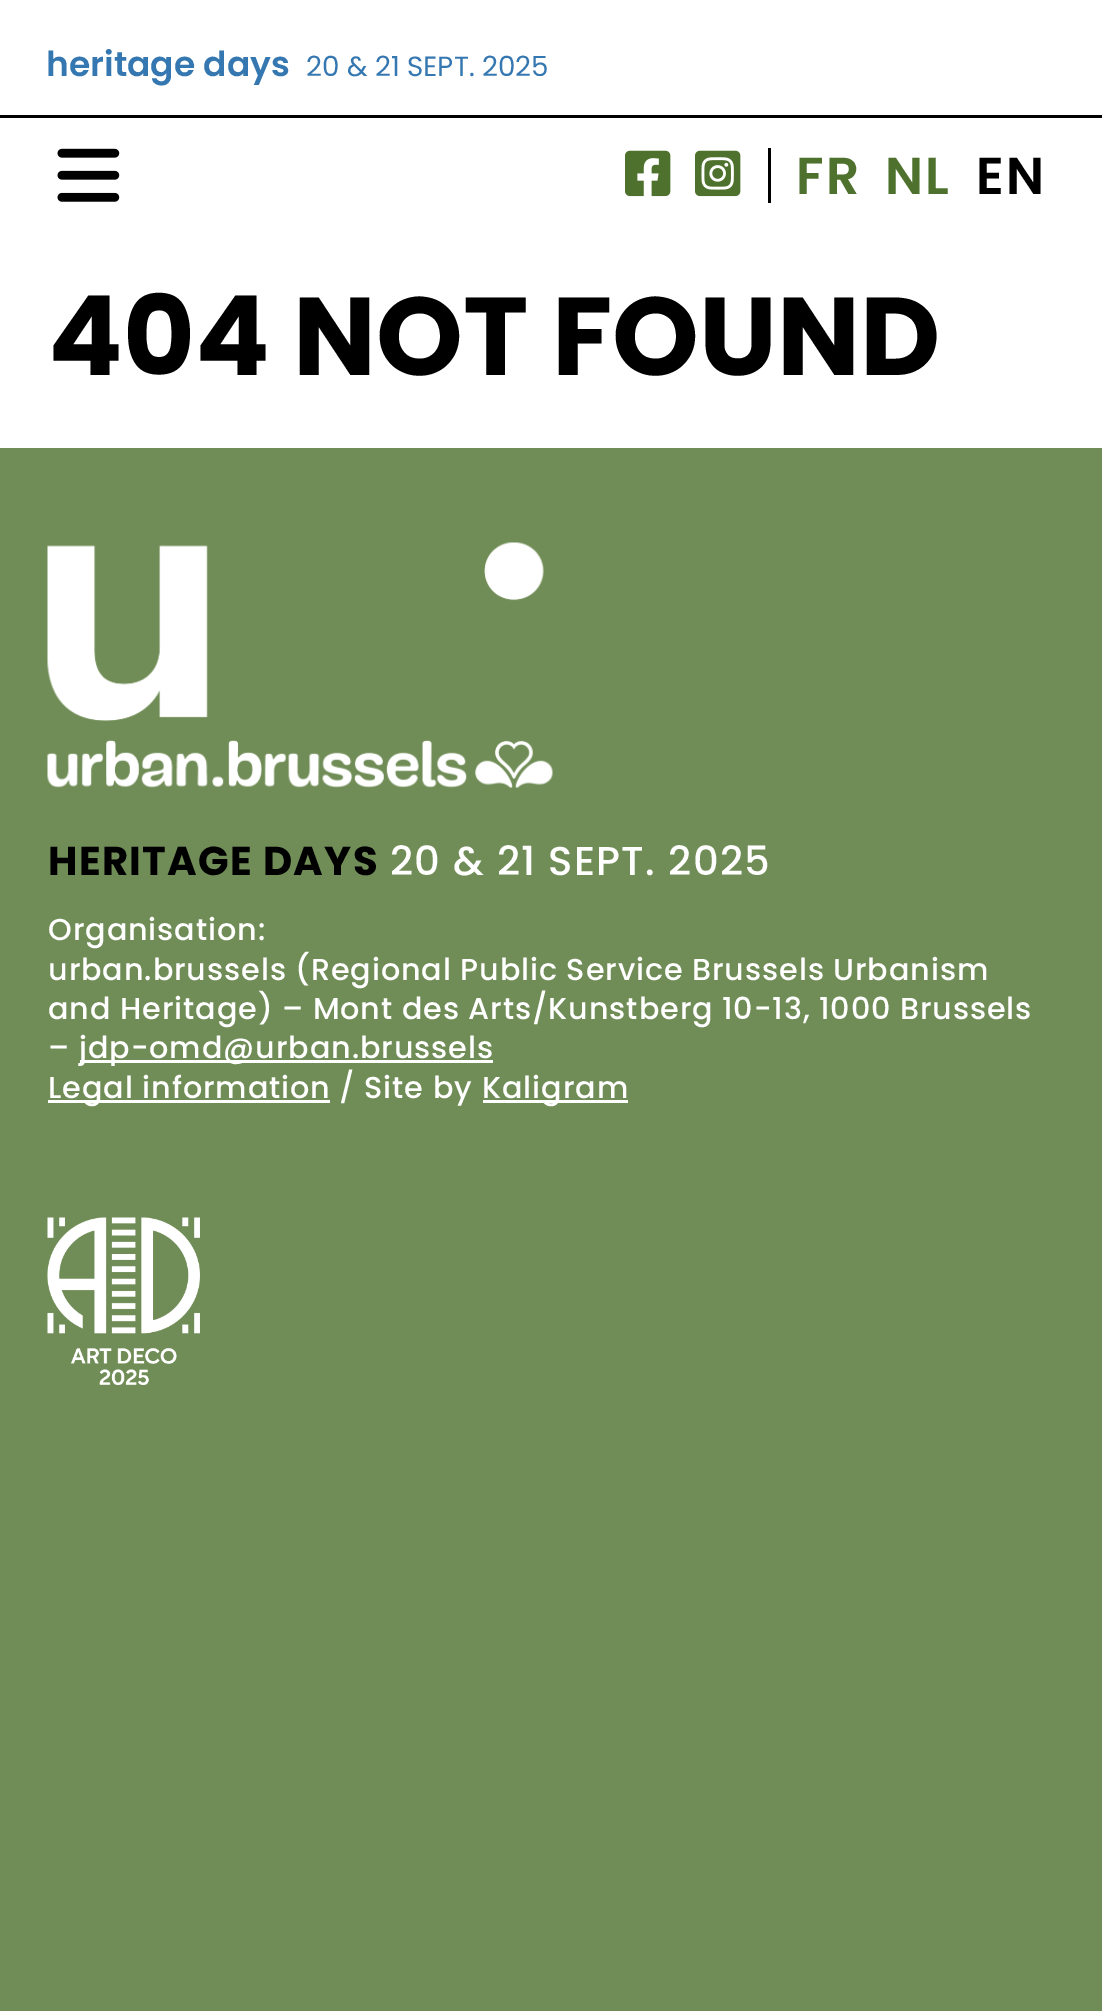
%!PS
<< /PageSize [1102 2011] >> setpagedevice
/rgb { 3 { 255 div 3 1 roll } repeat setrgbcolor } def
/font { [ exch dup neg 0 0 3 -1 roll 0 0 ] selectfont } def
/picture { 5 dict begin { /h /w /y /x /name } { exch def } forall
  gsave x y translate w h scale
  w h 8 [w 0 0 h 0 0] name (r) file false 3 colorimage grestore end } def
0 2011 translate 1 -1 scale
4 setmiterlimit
113 141 87 rgb
0 0 1102 2011 rectfill
255 255 255 rgb
0 0 1102 448 rectfill
0 0 0 rgb
0 115 1102 3 rectfill
(img/1.rgb) 57 148 63 54 picture
(img/2.rgb) 625 150 46 47 picture
768 148 3 55 rectfill
(img/3.rgb) 695 150 46 47 picture
(img/4.rgb) 47 542 506 246 picture
[
  [80 1060 413 3 255 255 255]
  [48 1100 282 3 255 255 255]
  [483 1100 145 3 255 255 255]
] { aload pop rgb rectfill } forall
(img/5.rgb) 47 1217 153 168 picture
/Poppins-SemiBold 34.5 font
53 119 176 rgb
46 76 moveto (heritage days) show
/Poppins-Regular 27.75 font
306 76 moveto (20 & 21 SEPT. 2025) show
/Poppins-SemiBold 52 font
78 113 46 rgb
796 194 moveto 2 0 (FR) ashow
885 194 moveto 2 0 (NL) ashow
0 0 0 rgb
976 194 moveto 2 0 (EN) ashow
/Poppins-Bold 110.5 font
48 375 moveto (404 NOT FOUND) show
/Poppins-Bold 40.25 font
48 875 moveto 1.25 0 (HERITAGE DAYS) ashow
/Poppins-Medium 40.25 font
255 255 255 rgb
390 875 moveto 1.25 0 (20 & 21 SEPT. 2025) ashow
/Poppins-Medium 30.25 font
48 940 moveto 0.9 0 (Organisation:) ashow
48 980 moveto -0.25 0 32 0.9 0 (urban.brussels \(Regional Public Service Brussels Urbanism) awidthshow
48 1019 moveto -0.25 0 32 0.9 0 (and Heritage\) – Mont des Arts/Kunstberg 10-13, 1000 Brussels) awidthshow
48 1058 moveto 0.9 0 (–) ashow
79 1058 moveto 0.9 0 (jdp-omd@urban.brussels) ashow
48 1098 moveto 0.9 0 (Legal information) ashow
339 1098 moveto 0.9 0 (/ Site by) ashow
482 1098 moveto 0.9 0 (Kaligram) ashow
showpage
